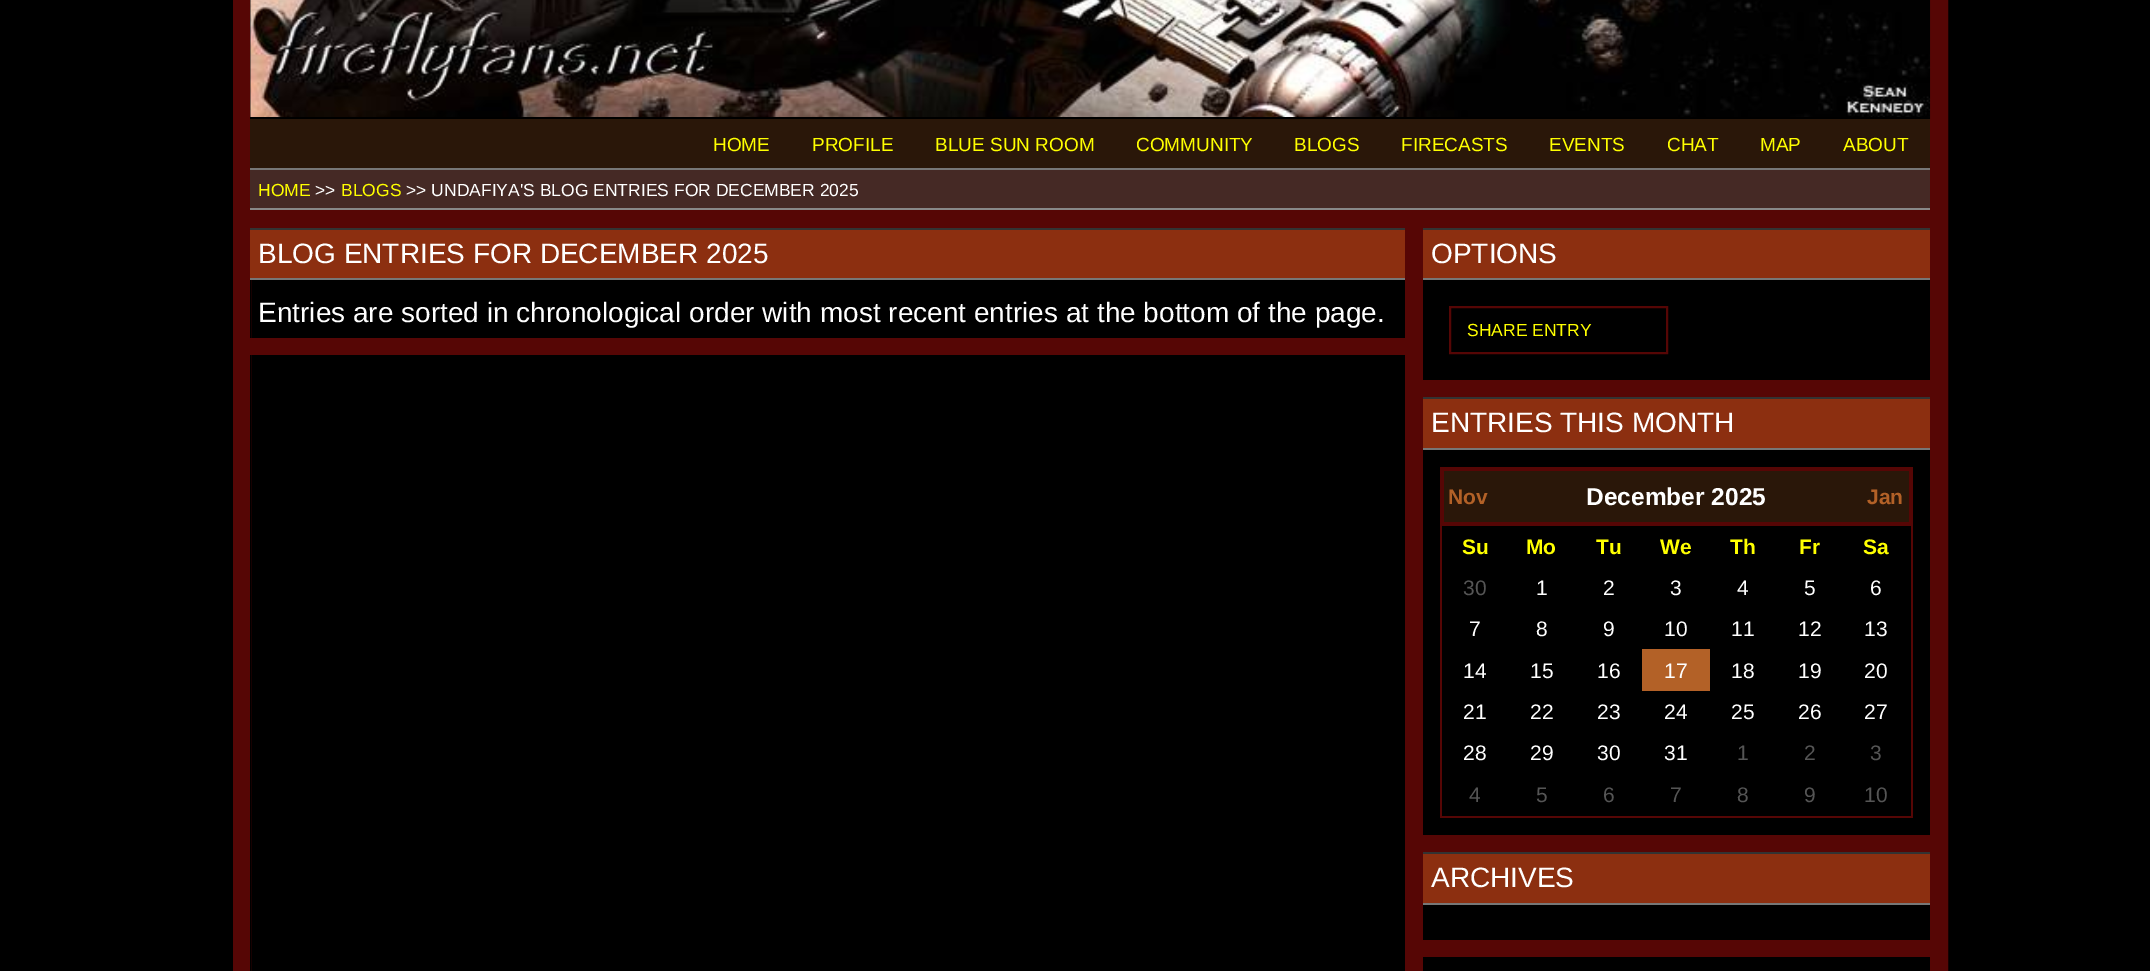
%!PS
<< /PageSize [2150 971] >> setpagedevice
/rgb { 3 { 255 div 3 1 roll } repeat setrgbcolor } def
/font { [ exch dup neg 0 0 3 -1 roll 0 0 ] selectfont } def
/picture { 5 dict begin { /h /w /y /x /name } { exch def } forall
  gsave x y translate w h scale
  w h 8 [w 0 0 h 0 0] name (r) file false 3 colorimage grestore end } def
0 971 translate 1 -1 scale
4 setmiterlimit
0 0 0 rgb
0 0 2150 971 rectfill
86 6 5 rgb
18 setlinewidth
242 -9 1697 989 rectstroke
0 0 0 rgb
250 0 1 117 rectfill
(img/1.rgb) 250 0 1681 119 picture
[
  [250 117 1671 2 0 0 0]
  [250 119 1680 49 42 23 9]
  [250 168 1680 2 119 119 119]
  [250 170 1680 38 69 41 37]
  [250 208 1680 2 136 136 136]
  [250 280 1 691 0 0 0]
  [251 210 1679 18 86 6 5]
  [1405 228 18 743 86 6 5]
  [250 230 1155 48 140 47 16]
  [250 228 1155 2 51 51 51]
  [250 278 1155 2 119 119 119]
  [250 338 1155 17 86 6 5]
  [1423 380 507 17 86 6 5]
  [1423 230 507 48 140 47 16]
  [1423 228 507 2 51 51 51]
  [1423 278 507 2 119 119 119]
] { aload pop rgb rectfill } forall
86 6 5 rgb
2 setlinewidth
1450 307 217 46 rectstroke
[
  [1423 835 507 17 86 6 5]
  [1423 399 507 49 140 47 16]
  [1423 397 507 2 51 51 51]
  [1423 448 507 2 119 119 119]
  [1911 526 2 291 86 6 5]
  [1440 816 473 2 86 6 5]
  [1440 526 2 291 86 6 5]
  [1444 471 465 51 42 23 9]
  [1440 467 473 4 86 6 5]
  [1909 467 4 58 86 6 5]
  [1440 522 473 4 86 6 5]
  [1440 467 4 58 86 6 5]
  [1642 649 68 42 179 97 39]
  [1423 940 507 17 86 6 5]
  [1423 854 507 49 140 47 16]
  [1423 852 507 2 51 51 51]
  [1423 903 507 2 119 119 119]
] { aload pop rgb rectfill } forall
/LiberationSans-Regular 19 font
255 255 0 rgb
[
  [(HOME) 713 151]
  [(PROFILE) 812 151]
  [(BLUE SUN ROOM) 935 151]
  [(COMMUNITY) 1136 151]
  [(BLOGS) 1294 151]
  [(FIRECASTS) 1401 151]
  [(EVENTS) 1549 151]
  [(CHAT) 1667 151]
  [(MAP) 1760 151]
  [(ABOUT) 1843 151]
] { aload pop moveto show } forall
/LiberationSans-Regular 17.5 font
258 196 moveto (HOME) show
255 255 255 rgb
315 196 moveto (>>) show
255 255 0 rgb
341 196 moveto (BLOGS) show
255 255 255 rgb
406 196 moveto (>> UNDAFIYA'S BLOG ENTRIES FOR DECEMBER 2025) show
/LiberationSans-Regular 28 font
[
  [(BLOG ENTRIES FOR DECEMBER 2025) 258 263]
  [(Entries are sorted in chronological order with most recent entries at the bottom of the page.) 258 322]
  [(OPTIONS) 1431 263]
] { aload pop moveto show } forall
/LiberationSans-Regular 17.5 font
255 255 0 rgb
1467 336 moveto (SHARE ENTRY) show
/LiberationSans-Regular 28 font
255 255 255 rgb
1431 432 moveto (ENTRIES THIS MONTH) show
/LiberationSans-Bold 21 font
179 97 39 rgb
1448 504 moveto (Nov) show
/LiberationSans-Bold 24.5 font
255 255 255 rgb
1586 505 moveto (December 2025) show
/LiberationSans-Bold 21 font
179 97 39 rgb
1867 504 moveto (Jan) show
255 255 0 rgb
[
  [(Su) 1462 554]
  [(Mo) 1526 554]
  [(Tu) 1596 554]
  [(We) 1660 554]
  [(Th) 1730 554]
  [(Fr) 1799 554]
  [(Sa) 1863 554]
] { aload pop moveto show } forall
/LiberationSans-Regular 21 font
85 85 85 rgb
1463 595 moveto (30) show
255 255 255 rgb
[
  [(1) 1536 595]
  [(2) 1603 595]
  [(3) 1670 595]
  [(4) 1737 595]
  [(5) 1804 595]
  [(6) 1870 595]
  [(7) 1469 636]
  [(8) 1536 636]
  [(9) 1603 636]
  [(10) 1664 636]
  [(11) 1731 636]
  [(12) 1798 636]
  [(13) 1864 636]
  [(14) 1463 678]
  [(15) 1530 678]
  [(16) 1597 678]
  [(17) 1664 678]
  [(18) 1731 678]
  [(19) 1798 678]
  [(20) 1864 678]
  [(21) 1463 719]
  [(22) 1530 719]
  [(23) 1597 719]
  [(24) 1664 719]
  [(25) 1731 719]
  [(26) 1798 719]
  [(27) 1864 719]
  [(28) 1463 760]
  [(29) 1530 760]
  [(30) 1597 760]
  [(31) 1664 760]
] { aload pop moveto show } forall
85 85 85 rgb
[
  [(1) 1737 760]
  [(2) 1804 760]
  [(3) 1870 760]
  [(4) 1469 802]
  [(5) 1536 802]
  [(6) 1603 802]
  [(7) 1670 802]
  [(8) 1737 802]
  [(9) 1804 802]
  [(10) 1864 802]
] { aload pop moveto show } forall
/LiberationSans-Regular 28 font
255 255 255 rgb
1431 887 moveto (ARCHIVES) show
showpage
